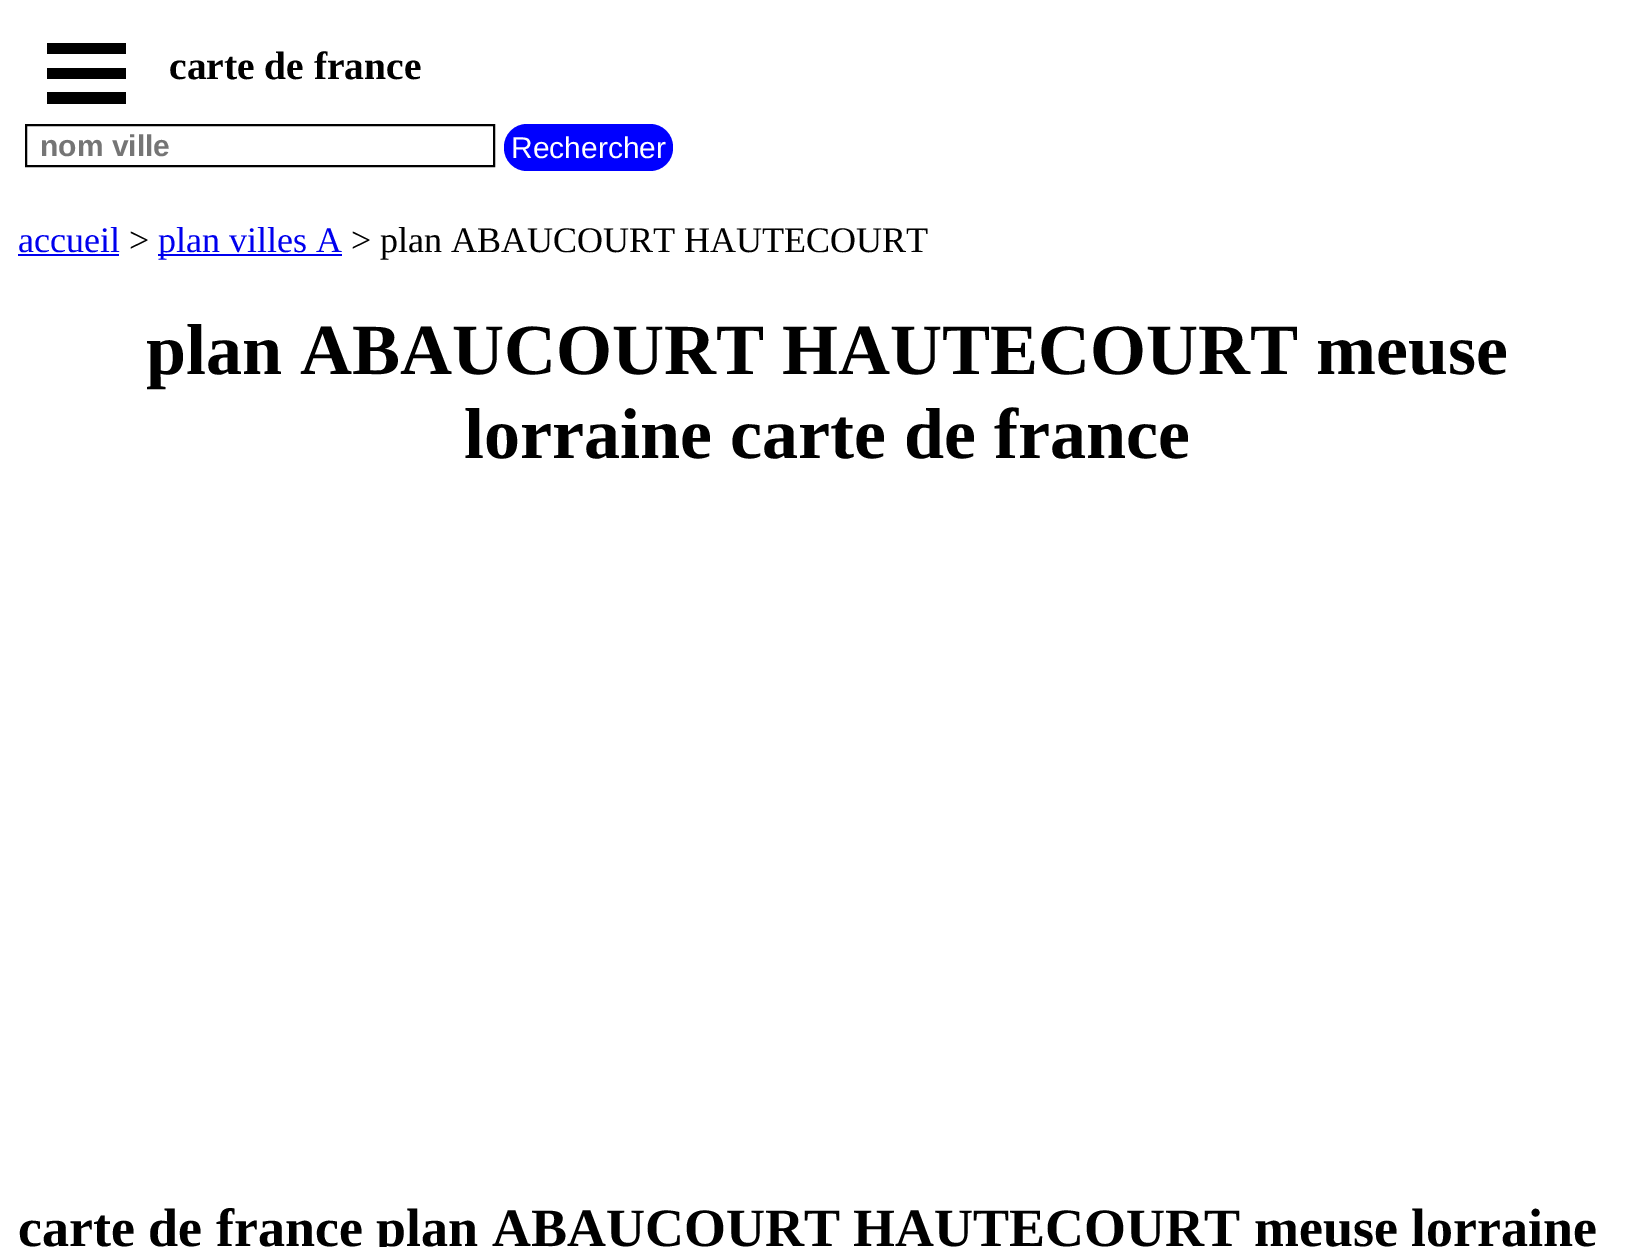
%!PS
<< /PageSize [1652 1247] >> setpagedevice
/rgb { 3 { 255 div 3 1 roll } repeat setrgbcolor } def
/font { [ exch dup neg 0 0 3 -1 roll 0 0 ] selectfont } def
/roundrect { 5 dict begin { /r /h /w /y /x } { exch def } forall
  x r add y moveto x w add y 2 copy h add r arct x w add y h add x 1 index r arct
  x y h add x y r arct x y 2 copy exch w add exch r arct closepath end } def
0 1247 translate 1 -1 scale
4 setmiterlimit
255 255 255 rgb
0 0 1652 1247 rectfill
[
  [47 43 79 11 0 0 0]
  [47 68 79 11 0 0 0]
  [47 92 79 12 0 0 0]
] { aload pop rgb rectfill } forall
2 setlinewidth
26 125 468 41 rectstroke
0 0 255 rgb
504 124 169 47 23 roundrect fill
0 0 238 rgb
18 254 101 2 rectfill
158 254 184 2 rectfill
/LiberationSerif-Bold 39.5 font
0 0 0 rgb
169 79 moveto (carte de france) show
/LiberationSans-Bold 30 font
117 117 117 rgb
40 156 moveto (nom ville) show
/LiberationSans-Regular 30 font
255 255 255 rgb
511 158 moveto (Rechercher) show
/LiberationSerif-Regular 36 font
0 0 238 rgb
18 252 moveto (accueil) show
0 0 0 rgb
129 252 moveto (>) show
0 0 238 rgb
158 252 moveto (plan villes A) show
0 0 0 rgb
351 252 moveto (> plan ABAUCOURT HAUTECOURT) show
/LiberationSerif-Bold 72 font
146 374 moveto (plan ABAUCOURT HAUTECOURT meuse) show
464 458 moveto (lorraine carte de france) show
/LiberationSerif-Bold 54 font
18 1246 moveto (carte de france plan ABAUCOURT HAUTECOURT meuse lorraine) show
showpage
